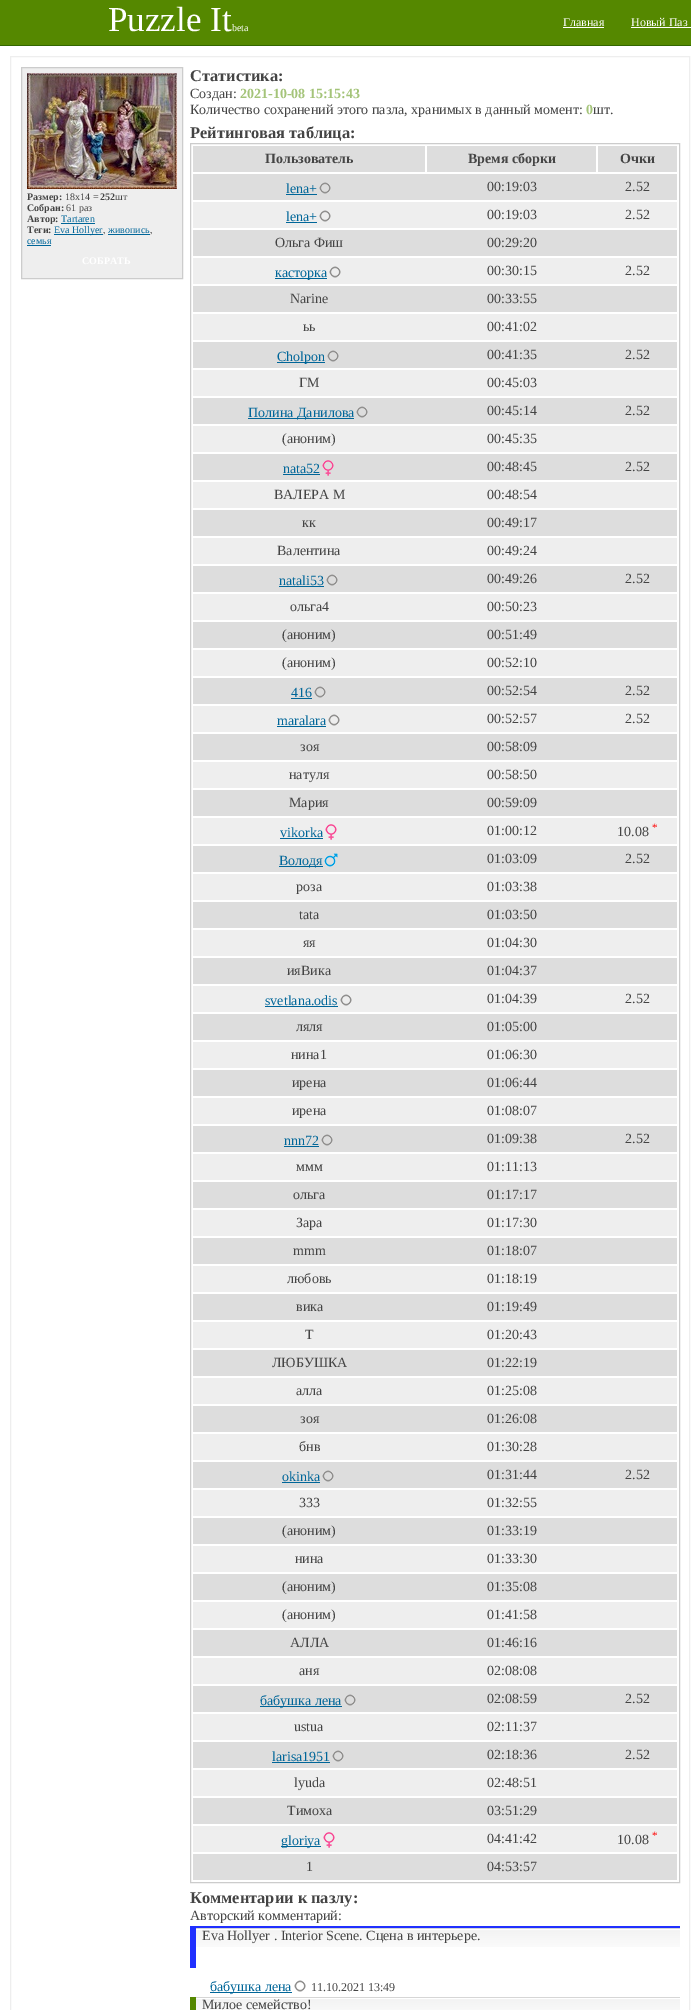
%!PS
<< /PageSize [691 2010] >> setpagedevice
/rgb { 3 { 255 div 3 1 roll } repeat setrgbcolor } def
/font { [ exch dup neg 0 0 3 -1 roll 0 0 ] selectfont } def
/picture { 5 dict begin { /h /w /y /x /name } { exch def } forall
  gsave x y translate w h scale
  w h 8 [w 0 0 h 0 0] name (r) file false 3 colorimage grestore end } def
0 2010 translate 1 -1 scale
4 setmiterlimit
255 255 255 rgb
0 0 691 2010 rectfill
[
  [0 0 691 45 85 136 0]
  [0 45 691 1 51 102 0]
  [563 27 41 1 255 255 255]
  [631 27 60 1 255 255 255]
] { aload pop rgb rectfill } forall
238 238 238 rgb
10.5 56.5 679 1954 rectstroke
21.5 67.5 moveto 182.5 67.5 lineto 182.5 278.5 lineto 21.5 278.5 lineto closepath gsave fill grestore
204 204 204 rgb
stroke
(img/1.rgb) 27 73 150 116 picture
[
  [61 223 34 1 0 102 153]
  [54 234 49 1 0 102 153]
  [108 234 42 1 0 102 153]
  [27 245 24 1 0 102 153]
] { aload pop rgb rectfill } forall
204 204 204 rgb
190.5 143.5 489 1739 rectstroke
[
  [193 146 232 26 221 221 221]
  [427 146 169 26 221 221 221]
  [598 146 79 26 221 221 221]
  [193 174 484 26 221 221 221]
  [286 194 31 1 0 102 153]
] { aload pop rgb rectfill } forall
(img/2.rgb) 319 182 12 12 picture
238 238 238 rgb
193 202 484 26 rectfill
0 102 153 rgb
286 222 31 1 rectfill
(img/3.rgb) 319 210 12 12 picture
[
  [193 230 484 26 221 221 221]
  [193 258 484 26 238 238 238]
  [275 278 52 1 0 102 153]
] { aload pop rgb rectfill } forall
(img/3.rgb) 329 266 12 12 picture
[
  [193 286 484 26 221 221 221]
  [193 314 484 26 238 238 238]
  [193 342 484 26 221 221 221]
  [277 362 48 1 0 102 153]
] { aload pop rgb rectfill } forall
(img/2.rgb) 327 350 12 12 picture
[
  [193 370 484 26 238 238 238]
  [193 398 484 26 221 221 221]
  [248 418 106 1 0 102 153]
] { aload pop rgb rectfill } forall
(img/2.rgb) 356 406 12 12 picture
[
  [193 426 484 26 238 238 238]
  [193 454 484 26 221 221 221]
  [283 474 37 1 0 102 153]
] { aload pop rgb rectfill } forall
(img/4.rgb) 322 460 12 16 picture
[
  [193 482 484 26 238 238 238]
  [193 510 484 26 221 221 221]
  [193 538 484 26 238 238 238]
  [193 566 484 26 221 221 221]
  [279 586 45 1 0 102 153]
] { aload pop rgb rectfill } forall
(img/2.rgb) 326 574 12 12 picture
[
  [193 594 484 26 238 238 238]
  [193 622 484 26 221 221 221]
  [193 650 484 26 238 238 238]
  [193 678 484 26 221 221 221]
  [291 698 21 1 0 102 153]
] { aload pop rgb rectfill } forall
(img/2.rgb) 314 686 12 12 picture
238 238 238 rgb
193 706 484 26 rectfill
0 102 153 rgb
277 726 49 1 rectfill
(img/3.rgb) 328 714 12 12 picture
[
  [193 734 484 26 221 221 221]
  [193 762 484 26 238 238 238]
  [193 790 484 26 221 221 221]
  [193 818 484 26 238 238 238]
  [280 838 43 1 0 102 153]
] { aload pop rgb rectfill } forall
(img/5.rgb) 325 824 12 16 picture
221 221 221 rgb
193 846 484 26 rectfill
0 102 153 rgb
279 866 44 1 rectfill
(img/6.rgb) 324 853 14 14 picture
[
  [193 874 484 26 238 238 238]
  [193 902 484 26 221 221 221]
  [193 930 484 26 238 238 238]
  [193 958 484 26 221 221 221]
  [193 986 484 26 238 238 238]
  [265 1006 73 1 0 102 153]
] { aload pop rgb rectfill } forall
(img/3.rgb) 340 994 12 12 picture
[
  [193 1014 484 26 221 221 221]
  [193 1042 484 26 238 238 238]
  [193 1070 484 26 221 221 221]
  [193 1098 484 26 238 238 238]
  [193 1126 484 26 221 221 221]
  [284 1146 35 1 0 102 153]
] { aload pop rgb rectfill } forall
(img/2.rgb) 321 1134 12 12 picture
[
  [193 1154 484 26 238 238 238]
  [193 1182 484 26 221 221 221]
  [193 1210 484 26 238 238 238]
  [193 1238 484 26 221 221 221]
  [193 1266 484 26 238 238 238]
  [193 1294 484 26 221 221 221]
  [193 1322 484 26 238 238 238]
  [193 1350 484 26 221 221 221]
  [193 1378 484 26 238 238 238]
  [193 1406 484 26 221 221 221]
  [193 1434 484 26 238 238 238]
  [193 1462 484 26 221 221 221]
  [282 1482 38 1 0 102 153]
] { aload pop rgb rectfill } forall
(img/2.rgb) 322 1470 12 12 picture
[
  [193 1490 484 26 238 238 238]
  [193 1518 484 26 221 221 221]
  [193 1546 484 26 238 238 238]
  [193 1574 484 26 221 221 221]
  [193 1602 484 26 238 238 238]
  [193 1630 484 26 221 221 221]
  [193 1658 484 26 238 238 238]
  [193 1686 484 26 221 221 221]
  [260 1706 82 1 0 102 153]
] { aload pop rgb rectfill } forall
(img/2.rgb) 344 1694 12 12 picture
[
  [193 1714 484 26 238 238 238]
  [193 1742 484 26 221 221 221]
  [272 1762 58 1 0 102 153]
] { aload pop rgb rectfill } forall
(img/2.rgb) 332 1750 12 12 picture
[
  [193 1770 484 26 238 238 238]
  [193 1798 484 26 221 221 221]
  [193 1826 484 26 238 238 238]
  [281 1846 40 1 0 102 153]
] { aload pop rgb rectfill } forall
(img/5.rgb) 323 1832 12 16 picture
221 221 221 rgb
193 1854 484 26 rectfill
(img/7.rgb) 196 1928 484 19 picture
[
  [190 1926 490 2 32 48 255]
  [190 1926 6 42 32 48 255]
  [210 1992 82 1 0 102 153]
] { aload pop rgb rectfill } forall
(img/8.rgb) 294 1980 12 12 picture
(img/9.rgb) 196 1997 484 13 picture
85 136 0 rgb
190 1997 6 13 rectfill
/LiberationSerif-Regular 35 font
255 255 255 rgb
108 31 moveto (Puzzle It) show
/LiberationSerif-Regular 10 font
232 31 moveto (beta) show
/LiberationSerif-Regular 12 font
563 26 moveto (Главная) show
631 26 moveto (Новый Паз) show
/LiberationSerif-Bold 10 font
68 68 68 rgb
27 200 moveto (Размер:) show
/LiberationSerif-Regular 10 font
65 200 moveto (18x14 =) show
/LiberationSerif-Bold 10 font
100 200 moveto (252) show
/LiberationSerif-Regular 10 font
115 200 moveto (шт) show
/LiberationSerif-Bold 10 font
27 211 moveto (Собран:) show
/LiberationSerif-Regular 10 font
66 211 moveto (61 раз) show
/LiberationSerif-Bold 10 font
27 222 moveto (Автор:) show
/LiberationSerif-Regular 10 font
0 102 153 rgb
61 222 moveto (Tartaren) show
/LiberationSerif-Bold 10 font
68 68 68 rgb
27 233 moveto (Теги:) show
/LiberationSerif-Regular 10 font
0 102 153 rgb
54 233 moveto (Eva Hollyer) show
68 68 68 rgb
103 233 moveto (,) show
0 102 153 rgb
108 233 moveto (живопись) show
68 68 68 rgb
150 233 moveto (,) show
0 102 153 rgb
27 244 moveto (семья) show
/LiberationSerif-Bold 10 font
255 255 255 rgb
82 264 moveto (СОБРАТЬ) show
/LiberationSerif-Bold 16.4 font
68 68 68 rgb
190 81 moveto (Статистика:) show
/LiberationSerif-Regular 14 font
190 98 moveto (Создан:) show
/LiberationSerif-Bold 14 font
164 196 121 rgb
240 98 moveto (2021-10-08 15:15:43) show
/LiberationSerif-Regular 14 font
68 68 68 rgb
190 114 moveto (Количество сохранений этого пазла, хранимых в данный момент:) show
/LiberationSerif-Bold 14 font
164 196 121 rgb
586 114 moveto (0) show
/LiberationSerif-Regular 14 font
68 68 68 rgb
593 114 moveto (шт.) show
/LiberationSerif-Bold 16.4 font
190 138 moveto (Рейтинговая таблица:) show
/LiberationSerif-Bold 14 font
[
  [(Пользователь) 265 163]
  [(Время сборки) 468 163]
  [(Очки) 620 163]
] { aload pop moveto show } forall
/LiberationSerif-Regular 14 font
0 102 153 rgb
286 193 moveto (lena+) show
68 68 68 rgb
487 191 moveto (00:19:03) show
625 191 moveto (2.52) show
0 102 153 rgb
286 221 moveto (lena+) show
68 68 68 rgb
[
  [(00:19:03) 487 219]
  [(2.52) 625 219]
  [(Ольга Фиш) 275 247]
  [(00:29:20) 487 247]
] { aload pop moveto show } forall
0 102 153 rgb
275 277 moveto (касторка) show
68 68 68 rgb
[
  [(00:30:15) 487 275]
  [(2.52) 625 275]
  [(Narine) 290 303]
  [(00:33:55) 487 303]
  [(ьь) 303 331]
  [(00:41:02) 487 331]
] { aload pop moveto show } forall
0 102 153 rgb
277 361 moveto (Cholpon) show
68 68 68 rgb
[
  [(00:41:35) 487 359]
  [(2.52) 625 359]
  [(ГМ) 299 387]
  [(00:45:03) 487 387]
] { aload pop moveto show } forall
0 102 153 rgb
248 417 moveto (Полина Данилова) show
68 68 68 rgb
[
  [(00:45:14) 487 415]
  [(2.52) 625 415]
  [(\(аноним\)) 282 443]
  [(00:45:35) 487 443]
] { aload pop moveto show } forall
0 102 153 rgb
283 473 moveto (nata52) show
68 68 68 rgb
[
  [(00:48:45) 487 471]
  [(2.52) 625 471]
  [(ВАЛЕРА М) 274 499]
  [(00:48:54) 487 499]
  [(кк) 302 527]
  [(00:49:17) 487 527]
  [(Валентина) 277 555]
  [(00:49:24) 487 555]
] { aload pop moveto show } forall
0 102 153 rgb
279 585 moveto (natali53) show
68 68 68 rgb
[
  [(00:49:26) 487 583]
  [(2.52) 625 583]
  [(ольга4) 290 611]
  [(00:50:23) 487 611]
  [(\(аноним\)) 282 639]
  [(00:51:49) 487 639]
  [(\(аноним\)) 282 667]
  [(00:52:10) 487 667]
] { aload pop moveto show } forall
0 102 153 rgb
291 697 moveto (416) show
68 68 68 rgb
487 695 moveto (00:52:54) show
625 695 moveto (2.52) show
0 102 153 rgb
277 725 moveto (maralara) show
68 68 68 rgb
[
  [(00:52:57) 487 723]
  [(2.52) 625 723]
  [(зоя) 300 751]
  [(00:58:09) 487 751]
  [(натуля) 289 779]
  [(00:58:50) 487 779]
  [(Мария) 289 807]
  [(00:59:09) 487 807]
] { aload pop moveto show } forall
0 102 153 rgb
280 837 moveto (vikorka) show
68 68 68 rgb
487 835 moveto (01:00:12) show
617 836 moveto (10.08) show
/LiberationSerif-Regular 11 font
255 0 0 rgb
652 831 moveto (*) show
/LiberationSerif-Regular 14 font
0 102 153 rgb
279 865 moveto (Володя) show
68 68 68 rgb
[
  [(01:03:09) 487 863]
  [(2.52) 625 863]
  [(роза) 296 891]
  [(01:03:38) 487 891]
  [(tata) 299 919]
  [(01:03:50) 487 919]
  [(яя) 303 947]
  [(01:04:30) 487 947]
  [(ияВика) 287 975]
  [(01:04:37) 487 975]
] { aload pop moveto show } forall
0 102 153 rgb
265 1005 moveto (svetlana.odis) show
68 68 68 rgb
[
  [(01:04:39) 487 1003]
  [(2.52) 625 1003]
  [(ляля) 296 1031]
  [(01:05:00) 487 1031]
  [(нина1) 291 1059]
  [(01:06:30) 487 1059]
  [(ирена) 292 1087]
  [(01:06:44) 487 1087]
  [(ирена) 292 1115]
  [(01:08:07) 487 1115]
] { aload pop moveto show } forall
0 102 153 rgb
284 1145 moveto (nnn72) show
68 68 68 rgb
[
  [(01:09:38) 487 1143]
  [(2.52) 625 1143]
  [(ммм) 296 1171]
  [(01:11:13) 487 1171]
  [(ольга) 293 1199]
  [(01:17:17) 487 1199]
  [(Зара) 296 1227]
  [(01:17:30) 487 1227]
  [(mmm) 293 1255]
  [(01:18:07) 487 1255]
  [(любовь) 287 1283]
  [(01:18:19) 487 1283]
  [(вика) 296 1311]
  [(01:19:49) 487 1311]
  [(Т) 305 1339]
  [(01:20:43) 487 1339]
  [(ЛЮБУШКА) 272 1367]
  [(01:22:19) 487 1367]
  [(алла) 296 1395]
  [(01:25:08) 487 1395]
  [(зоя) 300 1423]
  [(01:26:08) 487 1423]
  [(бнв) 299 1451]
  [(01:30:28) 487 1451]
] { aload pop moveto show } forall
0 102 153 rgb
282 1481 moveto (okinka) show
68 68 68 rgb
[
  [(01:31:44) 487 1479]
  [(2.52) 625 1479]
  [(333) 299 1507]
  [(01:32:55) 487 1507]
  [(\(аноним\)) 282 1535]
  [(01:33:19) 487 1535]
  [(нина) 295 1563]
  [(01:33:30) 487 1563]
  [(\(аноним\)) 282 1591]
  [(01:35:08) 487 1591]
  [(\(аноним\)) 282 1619]
  [(01:41:58) 487 1619]
  [(АЛЛА) 290 1647]
  [(01:46:16) 487 1647]
  [(аня) 299 1675]
  [(02:08:08) 487 1675]
] { aload pop moveto show } forall
0 102 153 rgb
260 1705 moveto (бабушка лена) show
68 68 68 rgb
[
  [(02:08:59) 487 1703]
  [(2.52) 625 1703]
  [(ustua) 294 1731]
  [(02:11:37) 487 1731]
] { aload pop moveto show } forall
0 102 153 rgb
272 1761 moveto (larisa1951) show
68 68 68 rgb
[
  [(02:18:36) 487 1759]
  [(2.52) 625 1759]
  [(lyuda) 294 1787]
  [(02:48:51) 487 1787]
  [(Тимоха) 287 1815]
  [(03:51:29) 487 1815]
] { aload pop moveto show } forall
0 102 153 rgb
281 1845 moveto (gloriya) show
68 68 68 rgb
487 1843 moveto (04:41:42) show
617 1844 moveto (10.08) show
/LiberationSerif-Regular 11 font
255 0 0 rgb
652 1839 moveto (*) show
/LiberationSerif-Regular 14 font
68 68 68 rgb
306 1871 moveto (1) show
487 1871 moveto (04:53:57) show
/LiberationSerif-Bold 16.4 font
190 1903 moveto (Комментарии к пазлу:) show
/LiberationSerif-Regular 14 font
190 1920 moveto (Авторский комментарий:) show
202 1940 moveto (Eva Hollyer . Interior Scene. Сцена в интерьере.) show
0 102 153 rgb
210 1991 moveto (бабушка лена) show
/LiberationSerif-Regular 12 font
68 68 68 rgb
311 1991 moveto (11.10.2021 13:49) show
/LiberationSerif-Regular 14 font
202 2009 moveto (Милое семейство!) show
showpage
